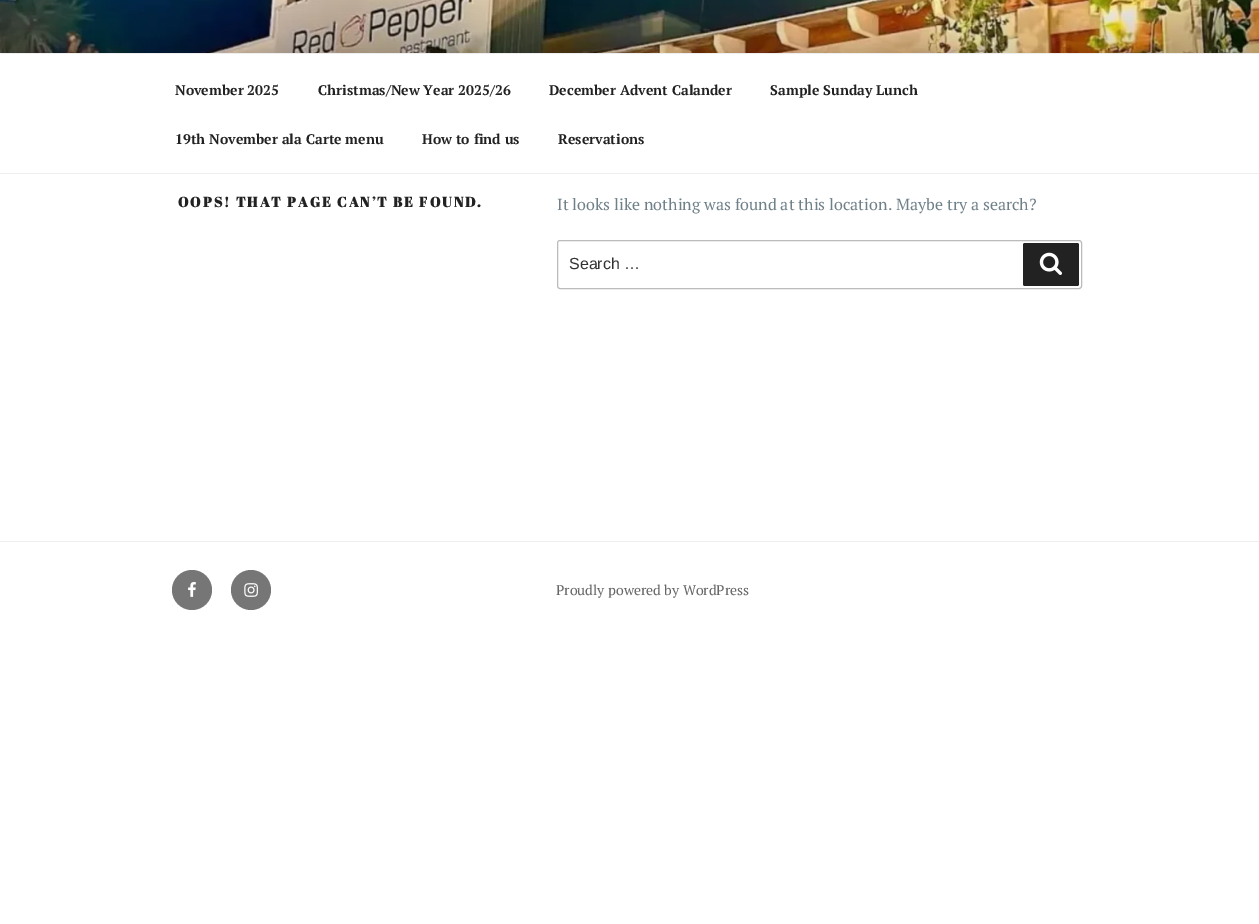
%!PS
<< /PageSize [1259 924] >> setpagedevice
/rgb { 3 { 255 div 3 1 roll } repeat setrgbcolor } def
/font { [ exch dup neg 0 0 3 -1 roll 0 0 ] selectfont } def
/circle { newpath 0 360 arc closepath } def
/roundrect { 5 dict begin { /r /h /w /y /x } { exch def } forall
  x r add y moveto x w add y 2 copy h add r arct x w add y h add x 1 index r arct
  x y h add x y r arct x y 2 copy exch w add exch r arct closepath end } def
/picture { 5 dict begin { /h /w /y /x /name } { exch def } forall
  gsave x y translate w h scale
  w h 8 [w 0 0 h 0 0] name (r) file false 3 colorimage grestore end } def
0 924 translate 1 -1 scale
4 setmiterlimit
255 255 255 rgb
0 0 1259 924 rectfill
(img/1.rgb) 0 0 1259 53 picture
238 238 238 rgb
0 53 1259 1 rectfill
0 173 1259 1 rectfill
187 187 187 rgb
557.5 240.5 524 48 2.5 roundrect stroke
34 34 34 rgb
1023 243 56 43 2 roundrect fill
(img/2.rgb) 1039 252 23 23 picture
238 238 238 rgb
0 541 1259 1 rectfill
118 118 118 rgb
192 590 20 circle fill
(img/3.rgb) 188 582 8 15 picture
251 590 20 circle fill
(img/4.rgb) 244 583 14 14 picture
/PTSerif-Bold 14 font
34 34 34 rgb
[
  [(November 2025) 175 95]
  [(Christmas/New Year 2025/26) 318 95]
  [(December Advent Calander) 549 95]
  [(Sample Sunday Lunch) 770 95]
  [(19th November ala Carte menu) 175 144]
  [(How to find us) 422 144]
  [(Reservations) 558 144]
] { aload pop moveto show } forall
/AbrilFatface-Bold 14 font
178 207 moveto 1.95 0 (OOPS! THAT PAGE CAN’T BE FOUND.) ashow
/PTSerif-Regular 16 font
111 128 137 rgb
557 210 moveto (It looks like nothing was found at this location. Maybe try a search?) show
/LiberationSans-Regular 16 font
51 51 51 rgb
569 269 moveto (Search …) show
/PTSerif-Regular 14 font
102 102 102 rgb
556 595 moveto (Proudly powered by WordPress) show
showpage
